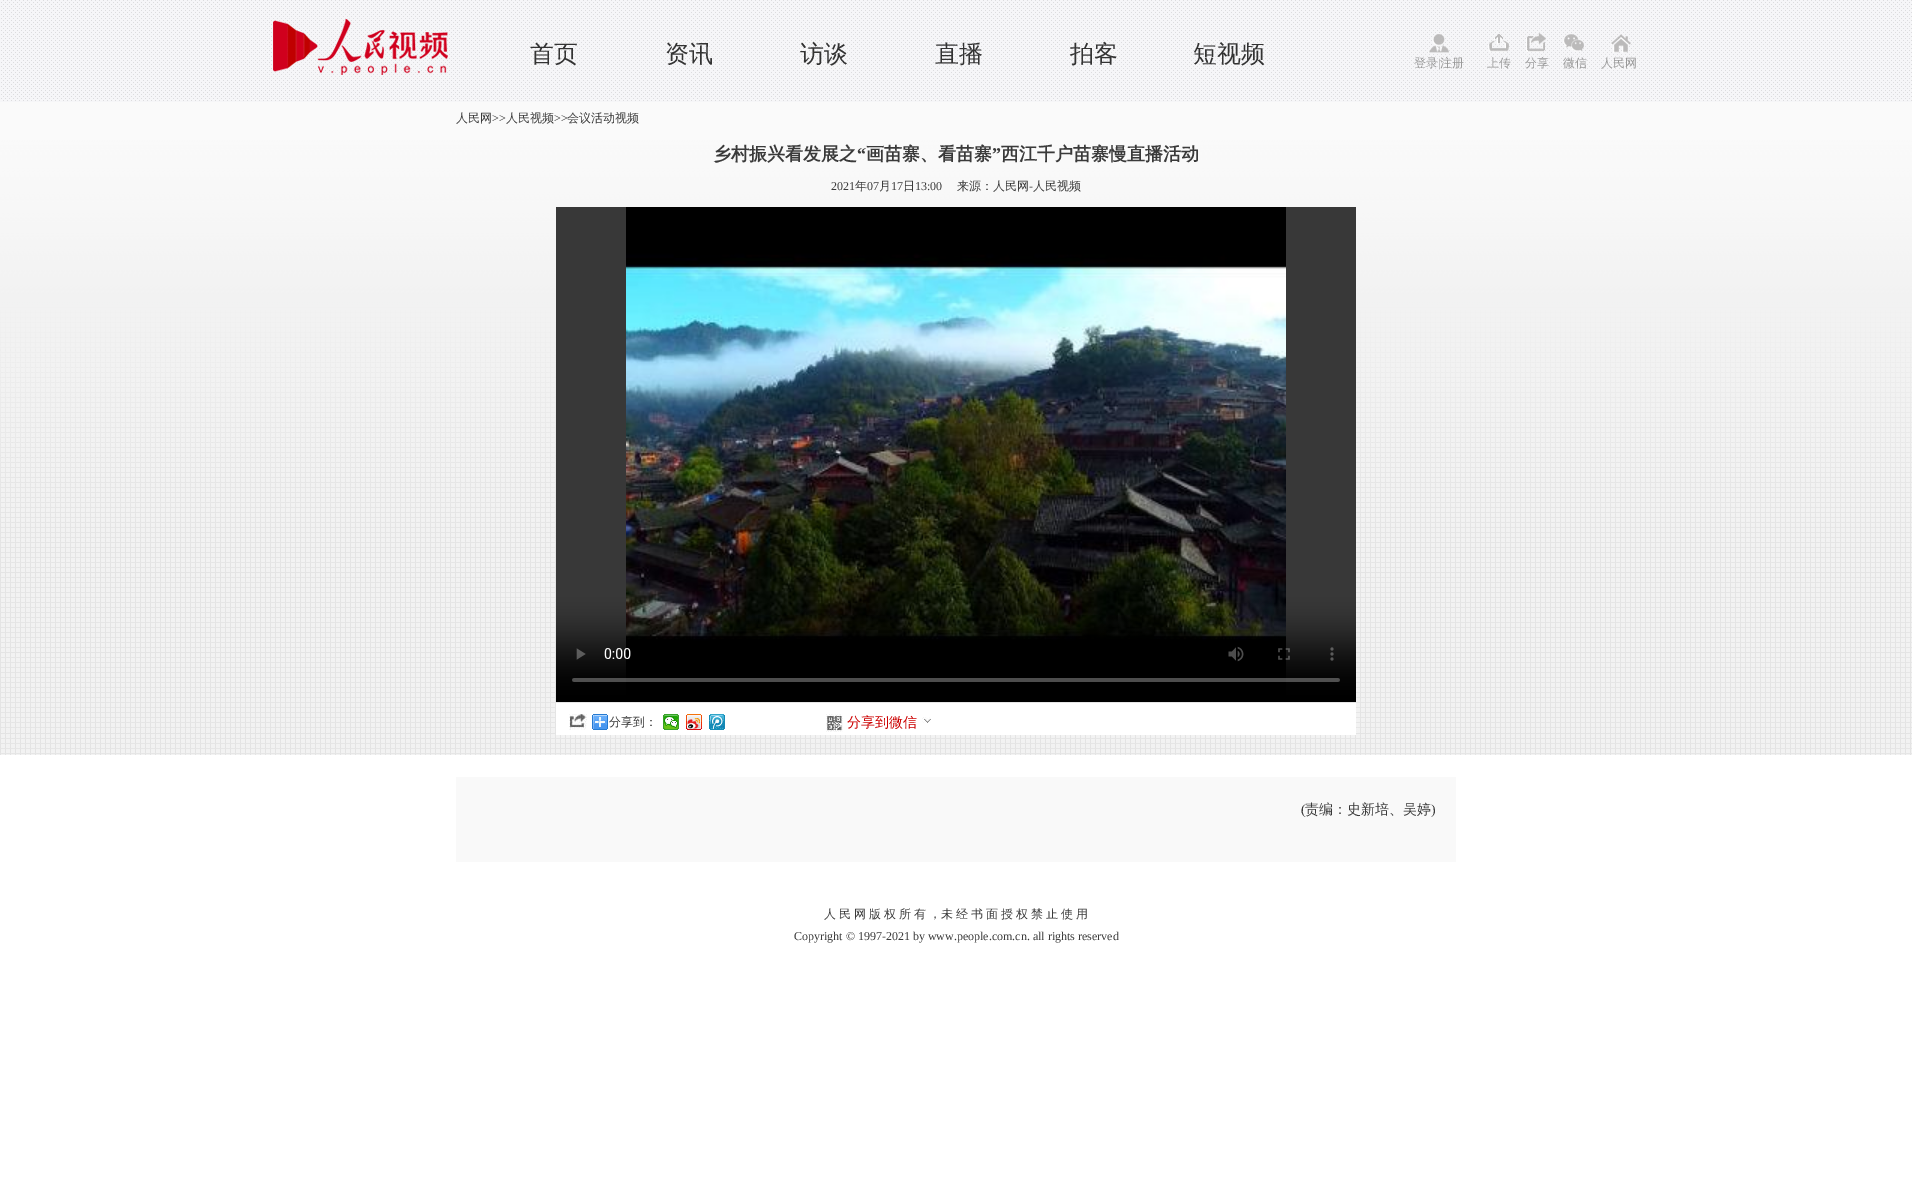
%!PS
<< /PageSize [1912 1177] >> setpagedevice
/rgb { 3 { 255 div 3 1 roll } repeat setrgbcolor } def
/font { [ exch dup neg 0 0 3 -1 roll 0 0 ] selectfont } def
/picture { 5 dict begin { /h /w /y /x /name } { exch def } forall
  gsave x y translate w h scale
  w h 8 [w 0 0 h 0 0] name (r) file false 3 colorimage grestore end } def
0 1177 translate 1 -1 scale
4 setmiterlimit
255 255 255 rgb
0 0 1912 1177 rectfill
(img/1.rgb) 0 0 1912 102 picture
(img/2.rgb) 273 19 175 56 picture
(img/3.rgb) 1428 34 21 19 picture
(img/4.rgb) 1488 34 21 19 picture
(img/5.rgb) 1526 33 20 20 picture
(img/6.rgb) 1563 34 21 18 picture
(img/7.rgb) 1611 34 20 19 picture
(img/8.rgb) 0 102 1912 653 picture
56 56 56 rgb
556 207 800 491 rectfill
(img/9.rgb) 556 207 800 495 picture
255 255 255 rgb
556 703 800 32 rectfill
(img/10.rgb) 569 714 18 16 picture
(img/11.rgb) 592 714 16 16 picture
(img/12.rgb) 663 714 16 16 picture
(img/13.rgb) 686 714 16 16 picture
(img/14.rgb) 709 714 16 16 picture
(img/15.rgb) 826 714 17 18 picture
(img/16.rgb) 922 717 9 6 picture
249 249 249 rgb
456 777 1000 85 rectfill
/WenQuanYiZenHei-Medium 24 font
51 51 51 rgb
[
  [(首页) 530 62]
  [(资讯) 665 62]
  [(访谈) 800 62]
  [(直播) 935 62]
  [(拍客) 1070 62]
  [(短视频) 1193 62]
] { aload pop moveto show } forall
/WenQuanYiZenHei-Medium 12 font
153 153 153 rgb
1414 67 moveto (登录) show
/LiberationSerif-Regular 12 font
1438 67 moveto (|) show
/WenQuanYiZenHei-Medium 12 font
[
  [(注册) 1440 67]
  [(上传) 1487 67]
  [(分享) 1525 67]
  [(微信) 1563 67]
  [(人民网) 1601 67]
] { aload pop moveto show } forall
58 58 58 rgb
456 122 moveto (人民网) show
/LiberationSerif-Regular 12 font
492 122 moveto (>>) show
/WenQuanYiZenHei-Medium 12 font
506 122 moveto (人民视频) show
/LiberationSerif-Regular 12 font
554 122 moveto (>>) show
/WenQuanYiZenHei-Medium 12 font
567 122 moveto (会议活动视频) show
/WenQuanYiZenHei-Bold 18 font
713 160 moveto (乡村振兴看发展之) show
/LiberationSerif-Bold 18 font
857 160 moveto (“) show
/WenQuanYiZenHei-Bold 18 font
866 160 moveto (画苗寨、看苗寨) show
/LiberationSerif-Bold 18 font
992 160 moveto (”) show
/WenQuanYiZenHei-Bold 18 font
1001 160 moveto (西江千户苗寨慢直播活动) show
/LiberationSerif-Regular 12 font
831 190 moveto (2021) show
/WenQuanYiZenHei-Medium 12 font
855 190 moveto (年) show
/LiberationSerif-Regular 12 font
867 190 moveto (07) show
/WenQuanYiZenHei-Medium 12 font
879 190 moveto (月) show
/LiberationSerif-Regular 12 font
891 190 moveto (17) show
/WenQuanYiZenHei-Medium 12 font
903 190 moveto (日) show
/LiberationSerif-Regular 12 font
915 190 moveto (13:00) show
/WenQuanYiZenHei-Medium 12 font
957 190 moveto (来源：人民网) show
/LiberationSerif-Regular 12 font
1029 190 moveto (-) show
/WenQuanYiZenHei-Medium 12 font
1033 190 moveto (人民视频) show
51 51 51 rgb
609 726 moveto (分享到：) show
/WenQuanYiZenHei-Medium 14 font
204 0 0 rgb
847 727 moveto (分享到微信) show
/LiberationSerif-Regular 14 font
58 58 58 rgb
1301 814 moveto (\() show
/WenQuanYiZenHei-Medium 14 font
1305 814 moveto (责编：史新培、吴婷) show
/LiberationSerif-Regular 14 font
1431 814 moveto (\)) show
/WenQuanYiZenHei-Medium 12 font
824 918 moveto -0.6 0 32 (人 民 网 版 权 所 有 ，未 经 书 面 授 权 禁 止 使 用) widthshow
/LiberationSerif-Regular 12 font
794 940 moveto (Copyright © 1997-2021 by www.people.com.cn. all rights reserved) show
showpage
